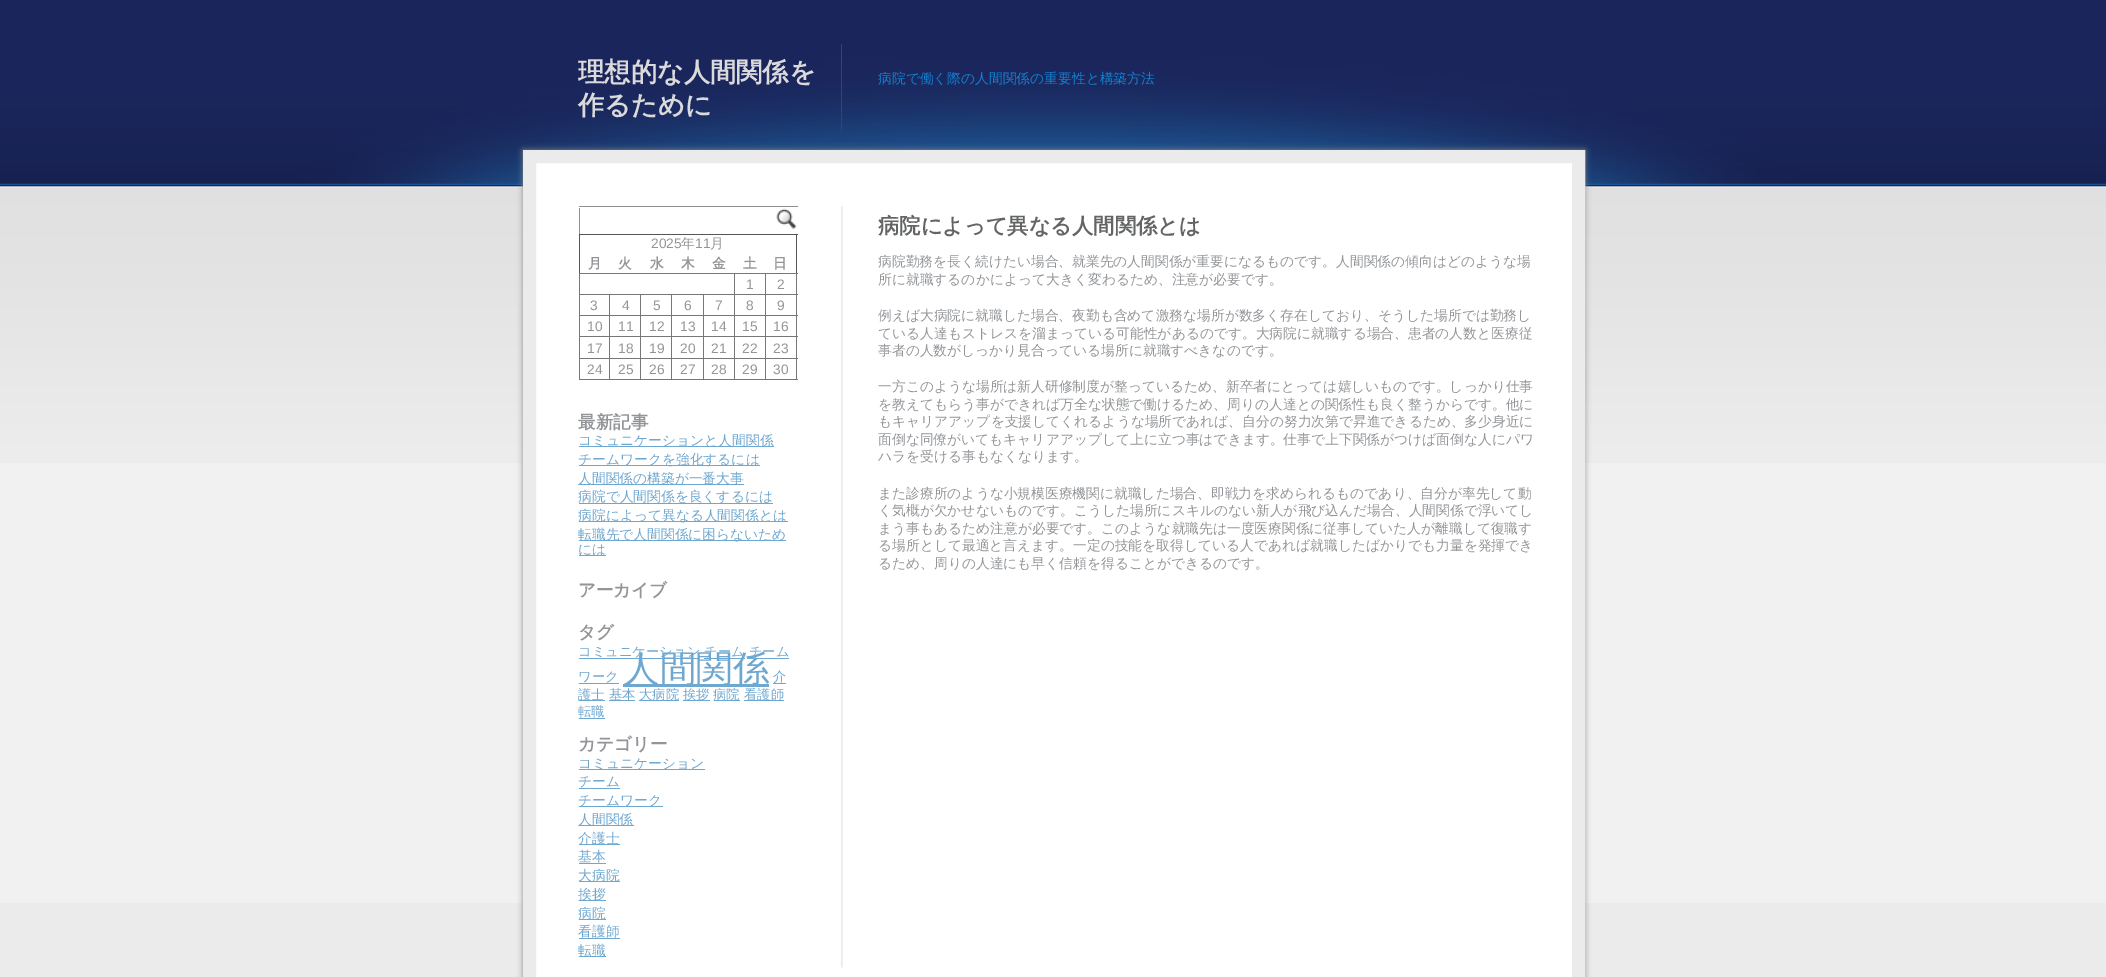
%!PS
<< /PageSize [2106 977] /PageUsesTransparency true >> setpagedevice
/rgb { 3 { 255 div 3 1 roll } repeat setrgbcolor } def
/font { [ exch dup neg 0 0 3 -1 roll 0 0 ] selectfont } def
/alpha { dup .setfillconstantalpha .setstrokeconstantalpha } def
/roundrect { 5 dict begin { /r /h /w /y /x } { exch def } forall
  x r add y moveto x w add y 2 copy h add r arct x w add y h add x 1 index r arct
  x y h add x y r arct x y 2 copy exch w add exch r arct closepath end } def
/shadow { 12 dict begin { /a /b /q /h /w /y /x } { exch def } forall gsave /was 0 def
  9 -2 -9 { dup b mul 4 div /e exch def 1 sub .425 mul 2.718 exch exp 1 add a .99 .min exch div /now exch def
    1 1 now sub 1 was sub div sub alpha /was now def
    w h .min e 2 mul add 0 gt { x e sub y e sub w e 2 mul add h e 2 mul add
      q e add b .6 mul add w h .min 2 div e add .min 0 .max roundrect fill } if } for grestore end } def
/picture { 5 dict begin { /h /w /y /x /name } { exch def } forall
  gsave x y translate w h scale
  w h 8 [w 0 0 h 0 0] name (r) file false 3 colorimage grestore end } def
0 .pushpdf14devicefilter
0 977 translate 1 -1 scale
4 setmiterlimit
241 241 241 rgb
0 0 2106 977 rectfill
(img/1.rgb) 0 0 2106 463 picture
235 235 235 rgb
0 903 2106 74 rectfill
28 75 134 rgb
841 44 1 87 rectfill
136 136 136 rgb
523 150 1062 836 0 3 1 shadow
255 255 255 rgb
529.5 156.5 moveto 1578.5 156.5 lineto 1578.5 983.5 lineto 529.5 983.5 lineto closepath gsave fill grestore
235 235 235 rgb
13 setlinewidth
stroke
(img/2.rgb) 841 206 2 762 picture
144 144 144 rgb
579 206 219 1 rectfill
579 208 1 26 rectfill
(img/3.rgb) 776 208 21 21 picture
[
  [579 234 219 1 85 85 85]
  [796 234 1 39 85 85 85]
  [579 234 1 39 85 85 85]
  [765 273 33 1 119 119 119]
  [765 294 33 1 119 119 119]
  [765 315 33 1 119 119 119]
  [765 336 33 1 119 119 119]
  [765 358 33 1 119 119 119]
  [796 358 1 22 119 119 119]
  [765 379 33 1 119 119 119]
  [765 358 1 22 119 119 119]
  [734 358 32 1 119 119 119]
  [765 336 1 23 119 119 119]
  [734 336 32 1 119 119 119]
  [765 315 1 23 119 119 119]
  [734 315 32 1 119 119 119]
  [765 294 1 22 119 119 119]
  [734 294 32 1 119 119 119]
  [765 273 1 22 119 119 119]
  [734 273 32 1 119 119 119]
  [734 379 32 1 119 119 119]
  [734 358 1 22 119 119 119]
  [703 358 32 1 119 119 119]
  [734 336 1 23 119 119 119]
  [703 336 32 1 119 119 119]
  [734 315 1 23 119 119 119]
  [703 315 32 1 119 119 119]
  [734 294 1 22 119 119 119]
  [703 294 32 1 119 119 119]
  [734 273 1 22 119 119 119]
  [579 273 156 1 119 119 119]
  [703 379 32 1 119 119 119]
  [703 358 1 22 119 119 119]
  [671 358 33 1 119 119 119]
  [703 336 1 23 119 119 119]
  [671 336 33 1 119 119 119]
  [703 315 1 23 119 119 119]
  [671 315 33 1 119 119 119]
  [703 294 1 22 119 119 119]
  [671 294 33 1 119 119 119]
  [671 379 33 1 119 119 119]
  [671 358 1 22 119 119 119]
  [640 358 33 1 119 119 119]
  [671 336 1 23 119 119 119]
  [640 336 33 1 119 119 119]
  [671 315 1 23 119 119 119]
  [640 315 33 1 119 119 119]
  [671 294 1 22 119 119 119]
  [640 294 33 1 119 119 119]
  [640 379 33 1 119 119 119]
  [640 358 1 22 119 119 119]
  [609 358 32 1 119 119 119]
  [640 336 1 23 119 119 119]
  [609 336 32 1 119 119 119]
  [640 315 1 23 119 119 119]
  [609 315 32 1 119 119 119]
  [640 294 1 22 119 119 119]
  [609 294 32 1 119 119 119]
  [609 379 32 1 119 119 119]
  [609 358 1 22 119 119 119]
  [579 358 31 1 119 119 119]
  [609 336 1 23 119 119 119]
  [579 336 31 1 119 119 119]
  [609 315 1 23 119 119 119]
  [579 315 31 1 119 119 119]
  [609 294 1 22 119 119 119]
  [579 294 31 1 119 119 119]
  [579 379 31 1 119 119 119]
  [579 358 1 22 119 119 119]
  [579 336 1 23 119 119 119]
  [579 315 1 23 119 119 119]
  [579 294 1 22 119 119 119]
  [579 273 1 22 119 119 119]
  [796 336 1 23 119 119 119]
  [796 315 1 23 119 119 119]
  [796 294 1 22 119 119 119]
  [796 273 1 22 119 119 119]
  [579 446 195 1 110 167 208]
  [579 465 181 1 110 167 208]
  [579 484 165 1 110 167 208]
  [579 503 194 1 110 167 208]
  [579 521 209 1 110 167 208]
  [579 540 207 1 110 167 208]
  [579 555 27 1 110 167 208]
  [579 658 121 1 110 167 208]
  [623 684 146 3 110 167 208]
  [704 658 41 1 110 167 208]
  [749 658 40 1 110 167 208]
  [579 683 40 1 110 167 208]
  [773 683 13 1 110 167 208]
  [579 700 26 1 110 167 208]
  [609 700 26 1 110 167 208]
  [639 700 40 1 110 167 208]
  [683 700 27 1 110 167 208]
  [714 700 26 1 110 167 208]
  [744 700 40 1 110 167 208]
  [579 718 26 1 110 167 208]
  [579 769 126 1 110 167 208]
  [579 788 41 1 110 167 208]
  [579 806 84 1 110 167 208]
  [579 825 55 1 110 167 208]
  [579 844 41 1 110 167 208]
  [579 863 27 1 110 167 208]
  [579 881 41 1 110 167 208]
  [579 900 27 1 110 167 208]
  [579 919 27 1 110 167 208]
  [579 938 41 1 110 167 208]
  [579 956 27 1 110 167 208]
] { aload pop rgb rectfill } forall
/WenQuanYiZenHei-Bold 26.25 font
219 218 219 rgb
578 81 moveto (理想的な人間関係を) show
578 114 moveto (作るために) show
/WenQuanYiZenHei-Medium 13.75 font
19 127 204 rgb
878 83 moveto (病院で働く際の人間関係の重要性と構築方法) show
/LiberationSans-Regular 13.75 font
147 149 152 rgb
651 248 moveto (2025) show
/WenQuanYiZenHei-Medium 13.75 font
681 248 moveto (年) show
/LiberationSans-Regular 13.75 font
695 248 moveto (11) show
/WenQuanYiZenHei-Medium 13.75 font
710 248 moveto (月) show
/WenQuanYiZenHei-Bold 13.75 font
[
  [(月) 588 268]
  [(火) 618 268]
  [(水) 650 268]
  [(木) 681 268]
  [(金) 712 268]
  [(土) 743 268]
  [(日) 773 268]
] { aload pop moveto show } forall
/LiberationSans-Regular 13.75 font
[
  [(1) 746 289]
  [(2) 777 289]
  [(3) 590 310]
  [(4) 622 310]
  [(5) 653 310]
  [(6) 684 310]
  [(7) 715 310]
  [(8) 746 310]
  [(9) 777 310]
  [(10) 587 331]
  [(11) 618 331]
  [(12) 649 331]
  [(13) 680 331]
  [(14) 711 331]
  [(15) 742 331]
  [(16) 773 331]
  [(17) 587 353]
  [(18) 618 353]
  [(19) 649 353]
  [(20) 680 353]
  [(21) 711 353]
  [(22) 742 353]
  [(23) 773 353]
  [(24) 587 374]
  [(25) 618 374]
  [(26) 649 374]
  [(27) 680 374]
  [(28) 711 374]
  [(29) 742 374]
  [(30) 773 374]
] { aload pop moveto show } forall
/WenQuanYiZenHei-Bold 17.5 font
578 428 moveto (最新記事) show
/WenQuanYiZenHei-Medium 13.75 font
110 167 208 rgb
[
  [(コミュニケーションと人間関係) 578 445]
  [(チームワークを強化するには) 578 464]
  [(人間関係の構築が一番大事) 578 483]
  [(病院で人間関係を良くするには) 578 501]
  [(病院によって異なる人間関係とは) 578 520]
  [(転職先で人間関係に困らないため) 578 539]
  [(には) 578 554]
] { aload pop moveto show } forall
/WenQuanYiZenHei-Bold 17.5 font
147 149 152 rgb
578 596 moveto (アーカイブ) show
578 638 moveto (タグ) show
/WenQuanYiZenHei-Medium 13.3 font
110 167 208 rgb
578 656 moveto (コミュニケーション チーム チーム) show
/WenQuanYiZenHei-Medium 36.5 font
623 681 moveto (人間関係) show
/WenQuanYiZenHei-Medium 13.3 font
[
  [(ワーク) 578 681]
  [(介) 773 681]
  [(護士) 578 699]
  [(基本) 609 699]
  [(大病院) 639 699]
  [(挨拶) 683 699]
  [(病院) 713 699]
  [(看護師) 744 699]
  [(転職) 578 716]
] { aload pop moveto show } forall
/WenQuanYiZenHei-Bold 17.5 font
147 149 152 rgb
578 750 moveto (カテゴリー) show
/WenQuanYiZenHei-Medium 13.75 font
110 167 208 rgb
[
  [(コミュニケーション) 578 768]
  [(チーム) 578 786]
  [(チームワーク) 578 805]
  [(人間関係) 578 824]
  [(介護士) 578 843]
  [(基本) 578 861]
  [(大病院) 578 880]
  [(挨拶) 578 899]
  [(病院) 578 918]
  [(看護師) 578 936]
  [(転職) 578 955]
] { aload pop moveto show } forall
/WenQuanYiZenHei-Bold 21.25 font
98 100 102 rgb
878 233 moveto (病院によって異なる人間関係とは) show
/WenQuanYiZenHei-Medium 13.75 font
147 149 152 rgb
[
  [(病院勤務を長く続けたい場合、就業先の人間関係が重要になるものです。人間関係の傾向はどのような場) 878 266]
  [(所に就職するのかによって大きく変わるため、注意が必要です。) 878 284]
  [(例えば大病院に就職した場合、夜勤も含めて激務な場所が数多く存在しており、そうした場所では勤務し) 878 320]
  [(ている人達もストレスを溜まっている可能性があるのです。大病院に就職する場合、患者の人数と医療従) 878 338]
  [(事者の人数がしっかり見合っている場所に就職すべきなのです。) 878 355]
  [(一方このような場所は新人研修制度が整っているため、新卒者にとっては嬉しいものです。しっかり仕事) 878 391]
  [(を教えてもらう事ができれば万全な状態で働けるため、周りの人達との関係性も良く整うからです。他に) 878 409]
  [(もキャリアアップを支援してくれるような場所であれば、自分の努力次第で昇進できるため、多少身近に) 878 426]
  [(面倒な同僚がいてもキャリアアップして上に立つ事はできます。仕事で上下関係がつけば面倒な人にパワ) 878 444]
  [(ハラを受ける事もなくなります。) 878 461]
  [(また診療所のような小規模医療機関に就職した場合、即戦力を求められるものであり、自分が率先して動) 878 498]
  [(く気概が欠かせないものです。こうした場所にスキルのない新人が飛び込んだ場合、人間関係で浮いてし) 878 515]
  [(まう事もあるため注意が必要です。このような就職先は一度医療関係に従事していた人が離職して復職す) 878 533]
  [(る場所として最適と言えます。一定の技能を取得している人であれば就職したばかりでも力量を発揮でき) 878 550]
  [(るため、周りの人達にも早く信頼を得ることができるのです。) 878 568]
] { aload pop moveto show } forall
.poppdf14devicefilter showpage
